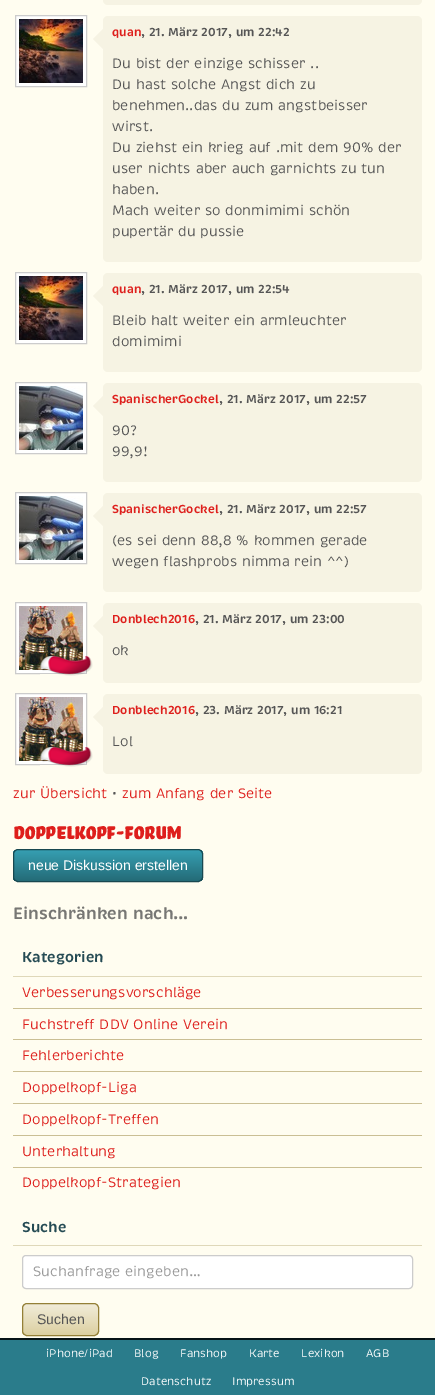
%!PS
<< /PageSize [435 1395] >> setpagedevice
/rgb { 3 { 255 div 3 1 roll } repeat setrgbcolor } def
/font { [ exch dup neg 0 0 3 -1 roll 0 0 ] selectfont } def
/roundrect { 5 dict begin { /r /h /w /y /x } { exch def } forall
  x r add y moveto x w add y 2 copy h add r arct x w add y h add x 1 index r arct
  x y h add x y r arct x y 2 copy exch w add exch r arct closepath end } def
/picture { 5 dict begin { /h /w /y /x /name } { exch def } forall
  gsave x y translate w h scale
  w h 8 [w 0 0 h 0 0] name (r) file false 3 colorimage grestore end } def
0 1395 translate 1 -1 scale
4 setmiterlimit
255 253 240 rgb
0 0 435 1395 rectfill
246 243 227 rgb
103 -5 319 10 5 roundrect fill
255 255 255 rgb
15.5 15.5 moveto 86.5 15.5 lineto 86.5 86.5 lineto 15.5 86.5 lineto closepath gsave fill grestore
204 204 204 rgb
stroke
(img/1.rgb) 19 19 64 64 picture
246 243 227 rgb
103 16 319 246 5 roundrect fill
103 29 moveto 103 49 lineto 93 39 lineto closepath fill
255 255 255 rgb
15.5 272.5 moveto 86.5 272.5 lineto 86.5 343.5 lineto 15.5 343.5 lineto closepath gsave fill grestore
204 204 204 rgb
stroke
(img/1.rgb) 19 276 64 64 picture
246 243 227 rgb
103 273 319 99 5 roundrect fill
103 286 moveto 103 306 lineto 93 296 lineto closepath fill
255 255 255 rgb
15.5 382.5 moveto 86.5 382.5 lineto 86.5 453.5 lineto 15.5 453.5 lineto closepath gsave fill grestore
204 204 204 rgb
stroke
(img/2.rgb) 19 386 64 64 picture
246 243 227 rgb
103 383 319 99 5 roundrect fill
103 396 moveto 103 416 lineto 93 406 lineto closepath fill
255 255 255 rgb
15.5 492.5 moveto 86.5 492.5 lineto 86.5 563.5 lineto 15.5 563.5 lineto closepath gsave fill grestore
204 204 204 rgb
stroke
(img/2.rgb) 19 496 64 64 picture
246 243 227 rgb
103 493 319 99 5 roundrect fill
103 506 moveto 103 526 lineto 93 516 lineto closepath fill
255 255 255 rgb
15.5 602.5 moveto 86.5 602.5 lineto 86.5 673.5 lineto 15.5 673.5 lineto closepath gsave fill grestore
204 204 204 rgb
stroke
(img/3.rgb) 19 606 64 64 picture
(img/4.rgb) 40 656 53 20 picture
246 243 227 rgb
103 603 319 80 5 roundrect fill
103 616 moveto 103 636 lineto 93 626 lineto closepath fill
255 255 255 rgb
15.5 693.5 moveto 86.5 693.5 lineto 86.5 764.5 lineto 15.5 764.5 lineto closepath gsave fill grestore
204 204 204 rgb
stroke
(img/3.rgb) 19 697 64 64 picture
(img/4.rgb) 40 747 53 20 picture
246 243 227 rgb
103 694 319 80 5 roundrect fill
103 707 moveto 103 727 lineto 93 717 lineto closepath fill
gsave
13 849 190 33 5 roundrect clip newpath
gsave 13 850 moveto 203 850 lineto 203 881 lineto 13 881 lineto closepath clip newpath
<< /ShadingType 2 /ColorSpace /DeviceRGB /Coords [108 850 108 881] /Extend [true true] /Function << /FunctionType 2 /Domain [0 1] /C0 [0.212 0.624 0.698] /C1 [0.141 0.42 0.467] /N 1 >> >> shfill grestore
grestore
24 72 80 rgb
13.5 849.5 189 32 4.5 roundrect stroke
[
  [13 976 409 1 223 216 185]
  [13 1008 409 1 202 191 148]
  [13 1039 409 1 202 191 148]
  [13 1071 409 1 202 191 148]
  [13 1103 409 1 202 191 148]
  [13 1135 409 1 202 191 148]
  [13 1167 409 1 202 191 148]
  [13 1245 409 1 223 216 185]
] { aload pop rgb rectfill } forall
255 255 255 rgb
22.5 1255.5 390 33 3.5 roundrect gsave fill grestore
204 204 204 rgb
stroke
gsave
22 1303 77 33 5 roundrect clip newpath
gsave 22 1304 moveto 99 1304 lineto 99 1335 lineto 22 1335 lineto closepath clip newpath
<< /ShadingType 2 /ColorSpace /DeviceRGB /Coords [61 1304 61 1335] /Extend [true true] /Function << /FunctionType 2 /Domain [0 1] /C0 [0.945 0.925 0.851] /C1 [0.863 0.816 0.631] /N 1 >> >> shfill grestore
grestore
148 128 55 rgb
22.5 1303.5 76 32 4.5 roundrect stroke
42 124 139 rgb
0 1340 435 55 rectfill
6 19 22 rgb
0 1338 435 2 rectfill
/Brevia-SemiBold 11.9 font
222 31 28 rgb
112 36 moveto (quan) show
85 85 85 rgb
141 36 moveto (, 21. März 2017, um 22:42) show
/Brevia-Regular 14 font
[
  [(Du bist der einzige schisser ..) 112 68]
  [(Du hast solche Angst dich zu) 112 89]
  [(benehmen..das du zum angstbeisser) 112 110]
  [(wirst.) 112 131]
  [(Du ziehst ein krieg auf .mit dem 90% der) 112 152]
  [(user nichts aber auch garnichts zu tun) 112 173]
  [(haben.) 112 194]
  [(Mach weiter so donmimimi schön) 112 215]
  [(pupertär du pussie) 112 236]
] { aload pop moveto show } forall
/Brevia-SemiBold 11.9 font
222 31 28 rgb
112 293 moveto (quan) show
85 85 85 rgb
141 293 moveto (, 21. März 2017, um 22:54) show
/Brevia-Regular 14 font
112 325 moveto (Bleib halt weiter ein armleuchter) show
112 346 moveto (domimimi) show
/Brevia-SemiBold 11.9 font
222 31 28 rgb
112 403 moveto (SpanischerGockel) show
85 85 85 rgb
219 403 moveto (, 21. März 2017, um 22:57) show
/Brevia-Regular 14 font
112 435 moveto (90?) show
112 456 moveto (99,9!) show
/Brevia-SemiBold 11.9 font
222 31 28 rgb
112 513 moveto (SpanischerGockel) show
85 85 85 rgb
219 513 moveto (, 21. März 2017, um 22:57) show
/Brevia-Regular 14 font
112 545 moveto (\(es sei denn 88,8 % kommen gerade) show
112 566 moveto (wegen flashprobs nimma rein ^^\)) show
/Brevia-SemiBold 11.9 font
222 31 28 rgb
112 623 moveto (Donblech2016) show
85 85 85 rgb
195 623 moveto (, 21. März 2017, um 23:00) show
/Brevia-Regular 14 font
112 655 moveto (ok) show
/Brevia-SemiBold 11.9 font
222 31 28 rgb
112 714 moveto (Donblech2016) show
85 85 85 rgb
195 714 moveto (, 23. März 2017, um 16:21) show
/Brevia-Regular 14 font
112 746 moveto (Lol) show
222 31 28 rgb
13 798 moveto (zur Übersicht) show
85 85 85 rgb
112 798 moveto (•) show
222 31 28 rgb
122 798 moveto (zum Anfang der Seite) show
/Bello-Regular 23.75 font
13 839 moveto (Doppelkopf-Forum) show
/LiberationSans-Regular 14 font
255 255 255 rgb
28 870 moveto (neue Diskussion erstellen) show
/Brevia-SemiBold 16.75 font
119 119 116 rgb
13 919 moveto (Einschränken nach…) show
/Brevia-SemiBold 14.75 font
37 75 84 rgb
22 962 moveto (Kategorien) show
/Brevia-Regular 14 font
222 31 28 rgb
[
  [(Verbesserungsvorschläge) 22 997]
  [(Fuchstreff DDV Online Verein) 22 1029]
  [(Fehlerberichte) 22 1060]
  [(Doppelkopf-Liga) 22 1092]
  [(Doppelkopf-Treffen) 22 1124]
  [(Unterhaltung) 22 1156]
  [(Doppelkopf-Strategien) 22 1187]
] { aload pop moveto show } forall
/Brevia-SemiBold 14.75 font
37 75 84 rgb
22 1232 moveto (Suche) show
/Brevia-Regular 14 font
153 153 153 rgb
33 1276 moveto (Suchanfrage eingeben…) show
/LiberationSans-Regular 14 font
85 85 85 rgb
37 1324 moveto (Suchen) show
/Brevia-Regular 11.25 font
255 255 255 rgb
[
  [(iPhone/iPad) 46 1357]
  [(Blog) 134 1357]
  [(Fanshop) 180 1357]
  [(Karte) 249 1357]
  [(Lexikon) 301 1357]
  [(AGB) 366 1357]
  [(Datenschutz) 141 1385]
  [(Impressum) 232 1385]
] { aload pop moveto show } forall
showpage
